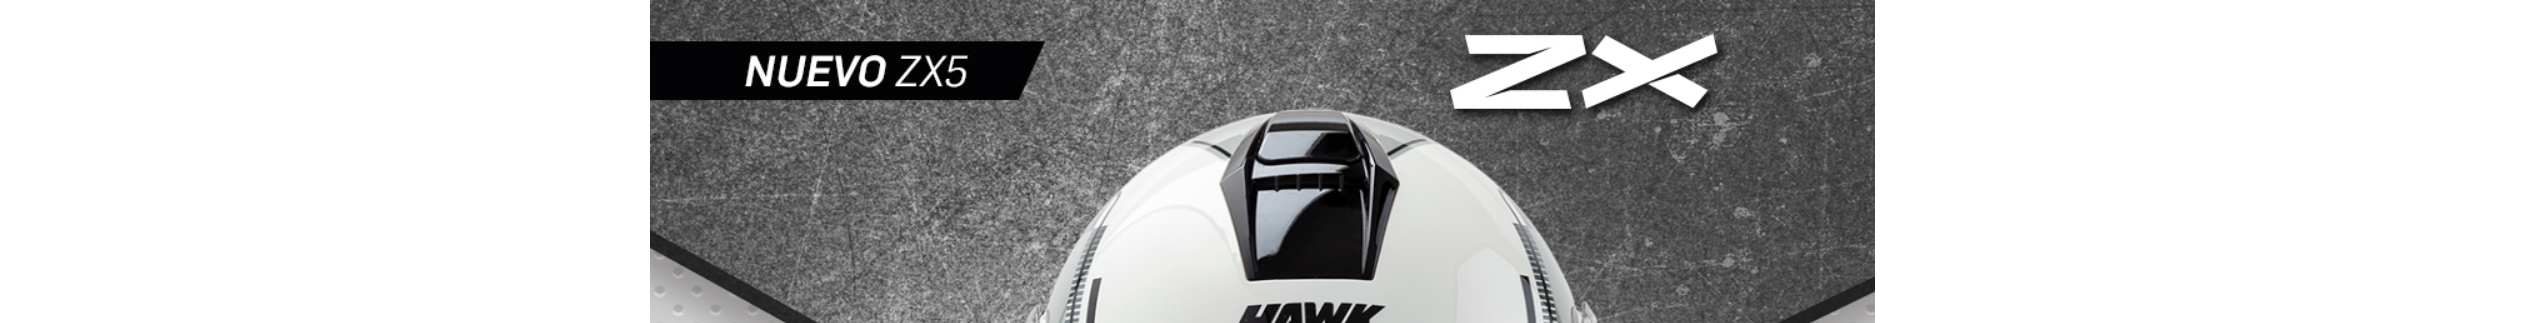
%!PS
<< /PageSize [2524 323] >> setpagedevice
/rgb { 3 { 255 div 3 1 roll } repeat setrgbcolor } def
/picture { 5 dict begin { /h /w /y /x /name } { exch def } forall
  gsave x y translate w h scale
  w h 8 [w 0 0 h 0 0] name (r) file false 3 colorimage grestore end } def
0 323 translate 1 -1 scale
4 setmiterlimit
255 255 255 rgb
0 0 2524 323 rectfill
(img/1.rgb) 650 0 1225 323 picture
(img/2.rgb) 1024 107 574 216 picture
showpage
